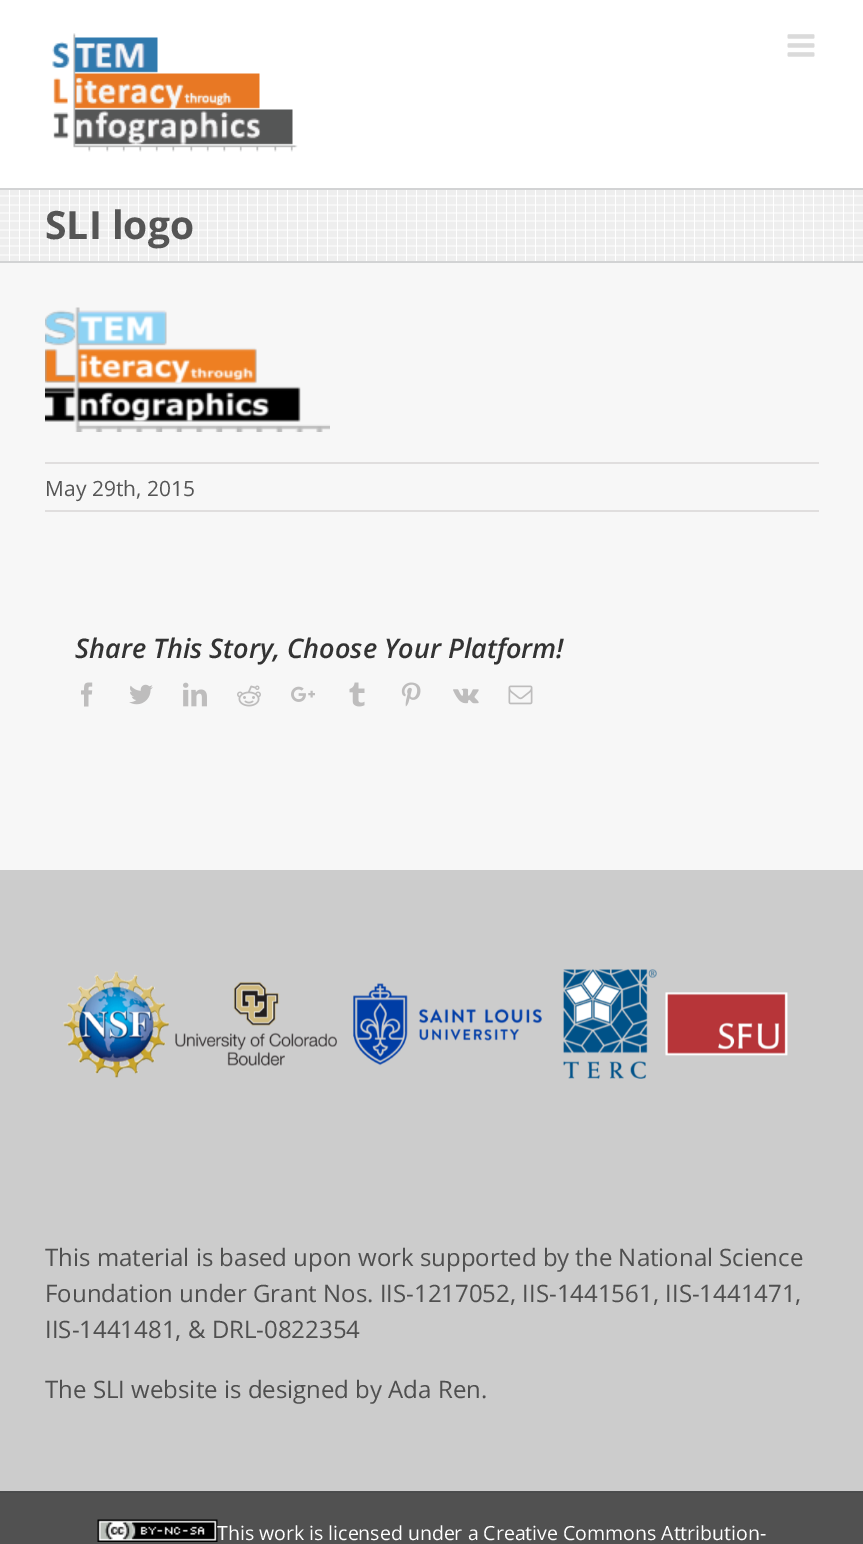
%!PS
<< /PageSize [863 1544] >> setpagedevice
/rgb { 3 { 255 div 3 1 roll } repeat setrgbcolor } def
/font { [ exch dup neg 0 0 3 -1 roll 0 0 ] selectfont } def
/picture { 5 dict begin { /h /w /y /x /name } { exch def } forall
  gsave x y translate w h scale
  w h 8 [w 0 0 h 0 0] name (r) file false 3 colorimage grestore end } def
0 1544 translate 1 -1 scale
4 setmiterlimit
247 247 247 rgb
0 0 863 1544 rectfill
255 255 255 rgb
0 0 863 188 rectfill
(img/1.rgb) 52 33 246 119 picture
(img/2.rgb) 787 34 28 23 picture
(img/3.rgb) 0 190 863 71 picture
210 211 212 rgb
0 188 863 2 rectfill
0 261 863 2 rectfill
(img/4.rgb) 45 307 285 125 picture
224 222 222 rgb
45 462 774 2 rectfill
45 510 774 2 rectfill
(img/5.rgb) 81 682 12 25 picture
(img/6.rgb) 129 684 24 21 picture
(img/7.rgb) 183 682 24 25 picture
(img/8.rgb) 237 685 24 22 picture
(img/9.rgb) 291 686 24 16 picture
(img/10.rgb) 349 682 16 25 picture
(img/11.rgb) 401 682 20 25 picture
(img/12.rgb) 453 688 26 16 picture
(img/13.rgb) 508 685 25 20 picture
204 204 204 rgb
0 870 863 621 rectfill
(img/14.rgb) 63 969 725 110 picture
81 81 81 rgb
0 1493 863 51 rectfill
75 76 77 rgb
0 1491 863 2 rectfill
(img/15.rgb) 97 1519 121 23 picture
/OpenSans-Bold 39 font
85 85 85 rgb
45 239 moveto (SLI logo) show
/OpenSans-Regular 21 font
45 496 moveto (May 29th, 2015) show
/OpenSans-SemiBoldItalic 27 font
51 51 51 rgb
75 658 moveto (Share This Story, Choose Your Platform!) show
/OpenSans-Regular 24 font
79 79 79 rgb
[
  [(This material is based upon work supported by the National Science) 45 1266]
  [(Foundation under Grant Nos. IIS-1217052, IIS-1441561, IIS-1441471,) 45 1302]
  [(IIS-1441481, & DRL-0822354) 45 1338]
  [(The SLI website is designed by Ada Ren.) 45 1398]
] { aload pop moveto show } forall
/OpenSans-Regular 19.5 font
255 255 255 rgb
217 1540 moveto (This work is licensed under a Creative Commons Attribution-) show
showpage
